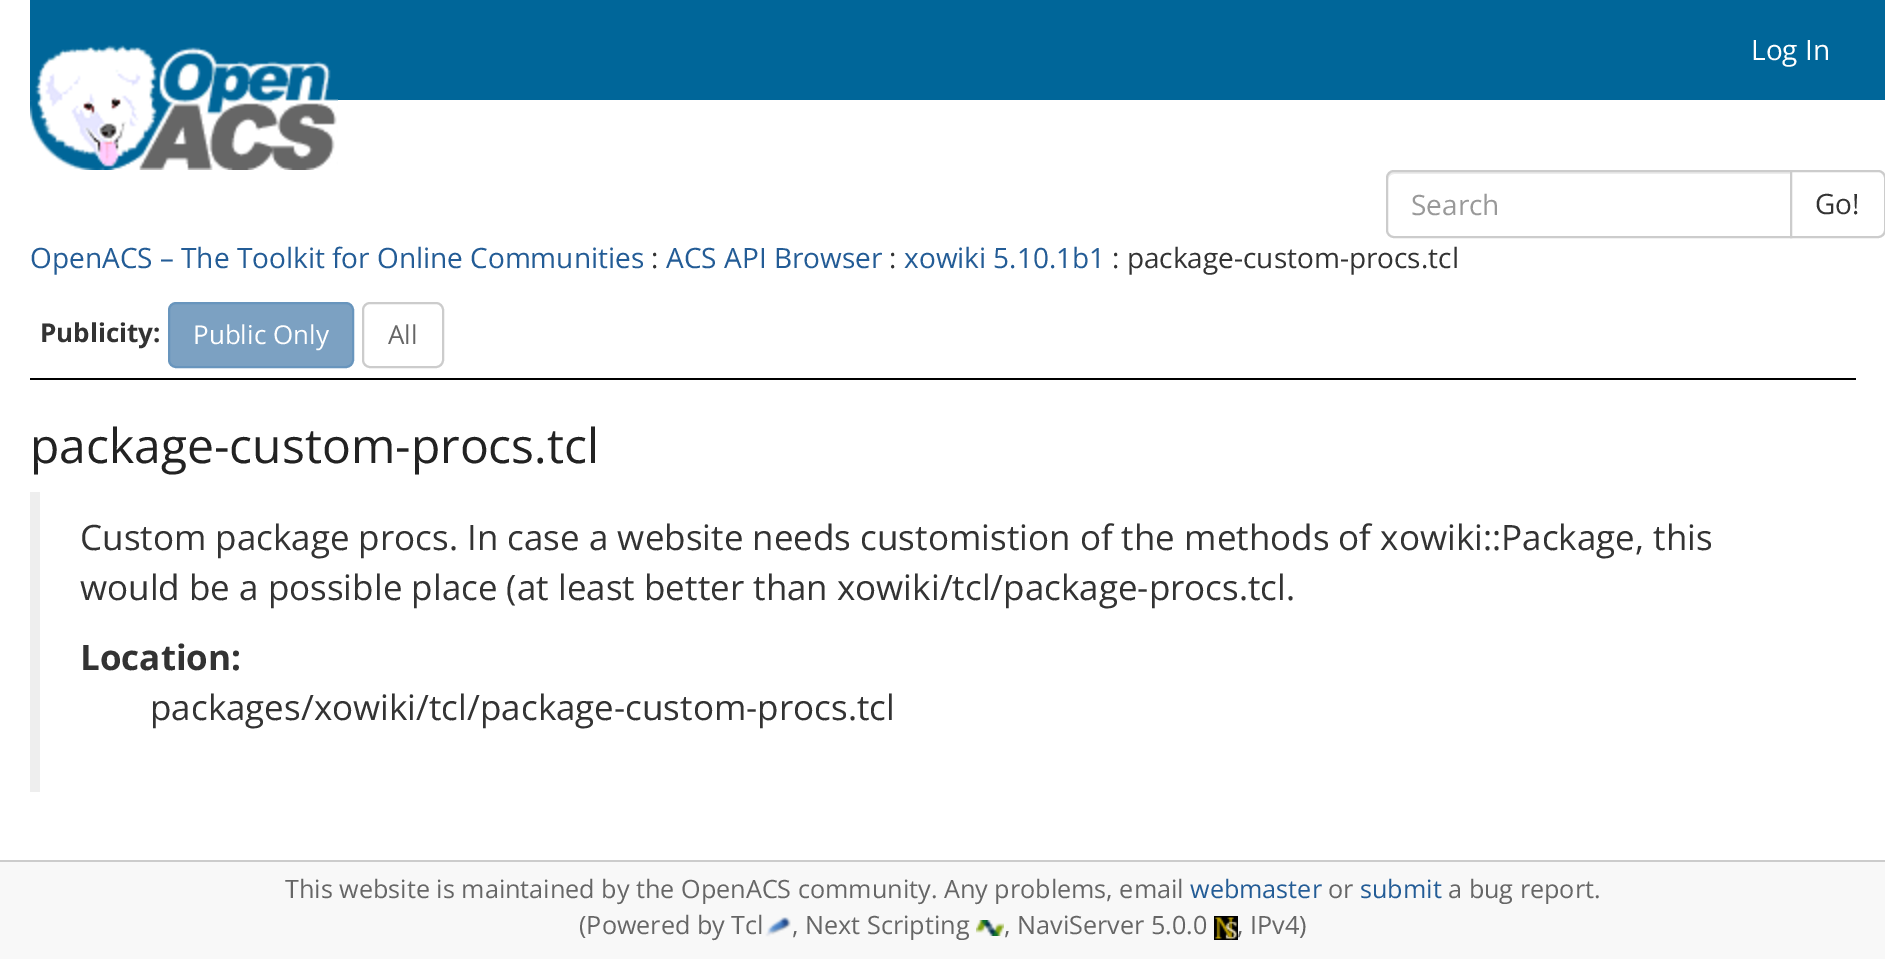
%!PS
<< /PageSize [1885 959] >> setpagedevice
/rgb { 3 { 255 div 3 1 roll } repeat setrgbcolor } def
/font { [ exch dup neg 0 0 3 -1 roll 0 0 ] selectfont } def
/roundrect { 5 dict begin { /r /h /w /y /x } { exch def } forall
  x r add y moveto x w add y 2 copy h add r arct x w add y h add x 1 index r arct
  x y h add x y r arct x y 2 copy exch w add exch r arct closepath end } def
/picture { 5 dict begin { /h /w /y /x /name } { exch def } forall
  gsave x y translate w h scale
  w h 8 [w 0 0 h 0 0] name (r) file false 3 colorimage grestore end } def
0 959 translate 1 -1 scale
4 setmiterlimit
255 255 255 rgb
0 0 1885 959 rectfill
0 102 153 rgb
30 0 1855 100 rectfill
(img/1.rgb) 30 45 308 125 picture
236 236 236 rgb
1394 174 moveto 1790 174 lineto 1790 172 lineto 1394 172 lineto 1389 172 1388 176 1388 180 curveto 1388 177 1391 174 1394 174 curveto closepath fill
204 204 204 rgb
2 setlinewidth
1394 171 moveto 1791 171 lineto 1791 237 lineto 1394 237 lineto 1390 237 1387 234 1387 230 curveto 1387 178 lineto 1387 174 1390 171 1394 171 curveto closepath stroke
255 255 255 rgb
1791 171 moveto 1878 171 lineto 1882 171 1885 174 1885 178 curveto 1885 230 lineto 1885 234 1882 237 1878 237 curveto 1791 237 lineto closepath gsave fill grestore
204 204 204 rgb
stroke
0 0 0 rgb
30 378 1826 2 rectfill
124 161 194 rgb
169 303 184 64 7 roundrect gsave fill grestore
104 149 189 rgb
stroke
204 204 204 rgb
363 303 80 64 7 roundrect stroke
[
  [30 492 10 300 238 238 238]
  [0 862 1885 97 248 248 248]
  [0 860 1885 2 204 204 204]
] { aload pop rgb rectfill } forall
(img/2.rgb) 765 917 26 20 picture
(img/3.rgb) 976 920 28 16 picture
(img/4.rgb) 1214 916 24 24 picture
/OpenSans-Regular 28 font
255 255 255 rgb
1751 60 moveto (Log In) show
153 153 153 rgb
1411 215 moveto (Search) show
51 51 51 rgb
1815 214 moveto (Go!) show
35 92 150 rgb
30 268 moveto (OpenACS – The Toolkit for Online Communities) show
51 51 51 rgb
651 268 moveto (:) show
35 92 150 rgb
666 268 moveto (ACS API Browser) show
51 51 51 rgb
889 268 moveto (:) show
35 92 150 rgb
904 268 moveto (xowiki 5.10.1b1) show
51 51 51 rgb
1112 268 moveto (: package-custom-procs.tcl) show
/OpenSans-Bold 26 font
40 342 moveto (Publicity:) show
/OpenSans-Regular 26 font
255 255 255 rgb
193 344 moveto (Public Only) show
102 102 102 rgb
388 344 moveto (All) show
/OpenSans-Regular 48 font
34 34 34 rgb
30 463 moveto (package-custom-procs.tcl) show
/OpenSans-Regular 35 font
51 51 51 rgb
80 550 moveto (Custom package procs. In case a website needs customistion of the methods of xowiki::Package, this) show
80 600 moveto (would be a possible place \(at least better than xowiki/tcl/package-procs.tcl.) show
/OpenSans-Bold 35 font
80 670 moveto (Location:) show
/OpenSans-Regular 35 font
150 720 moveto (packages/xowiki/tcl/package-custom-procs.tcl) show
/OpenSans-Regular 25.2 font
102 102 102 rgb
285 898 moveto (This website is maintained by the OpenACS community. Any problems, email) show
35 92 150 rgb
1190 898 moveto (webmaster) show
102 102 102 rgb
1328 898 moveto (or) show
35 92 150 rgb
1360 898 moveto (submit) show
102 102 102 rgb
[
  [(a bug report.) 1448 898]
  [(\(Powered by Tcl) 579 934]
  [(, Next Scripting) 792 934]
  [(, NaviServer 5.0.0) 1004 934]
  [(, IPv4\)) 1237 934]
] { aload pop moveto show } forall
showpage
